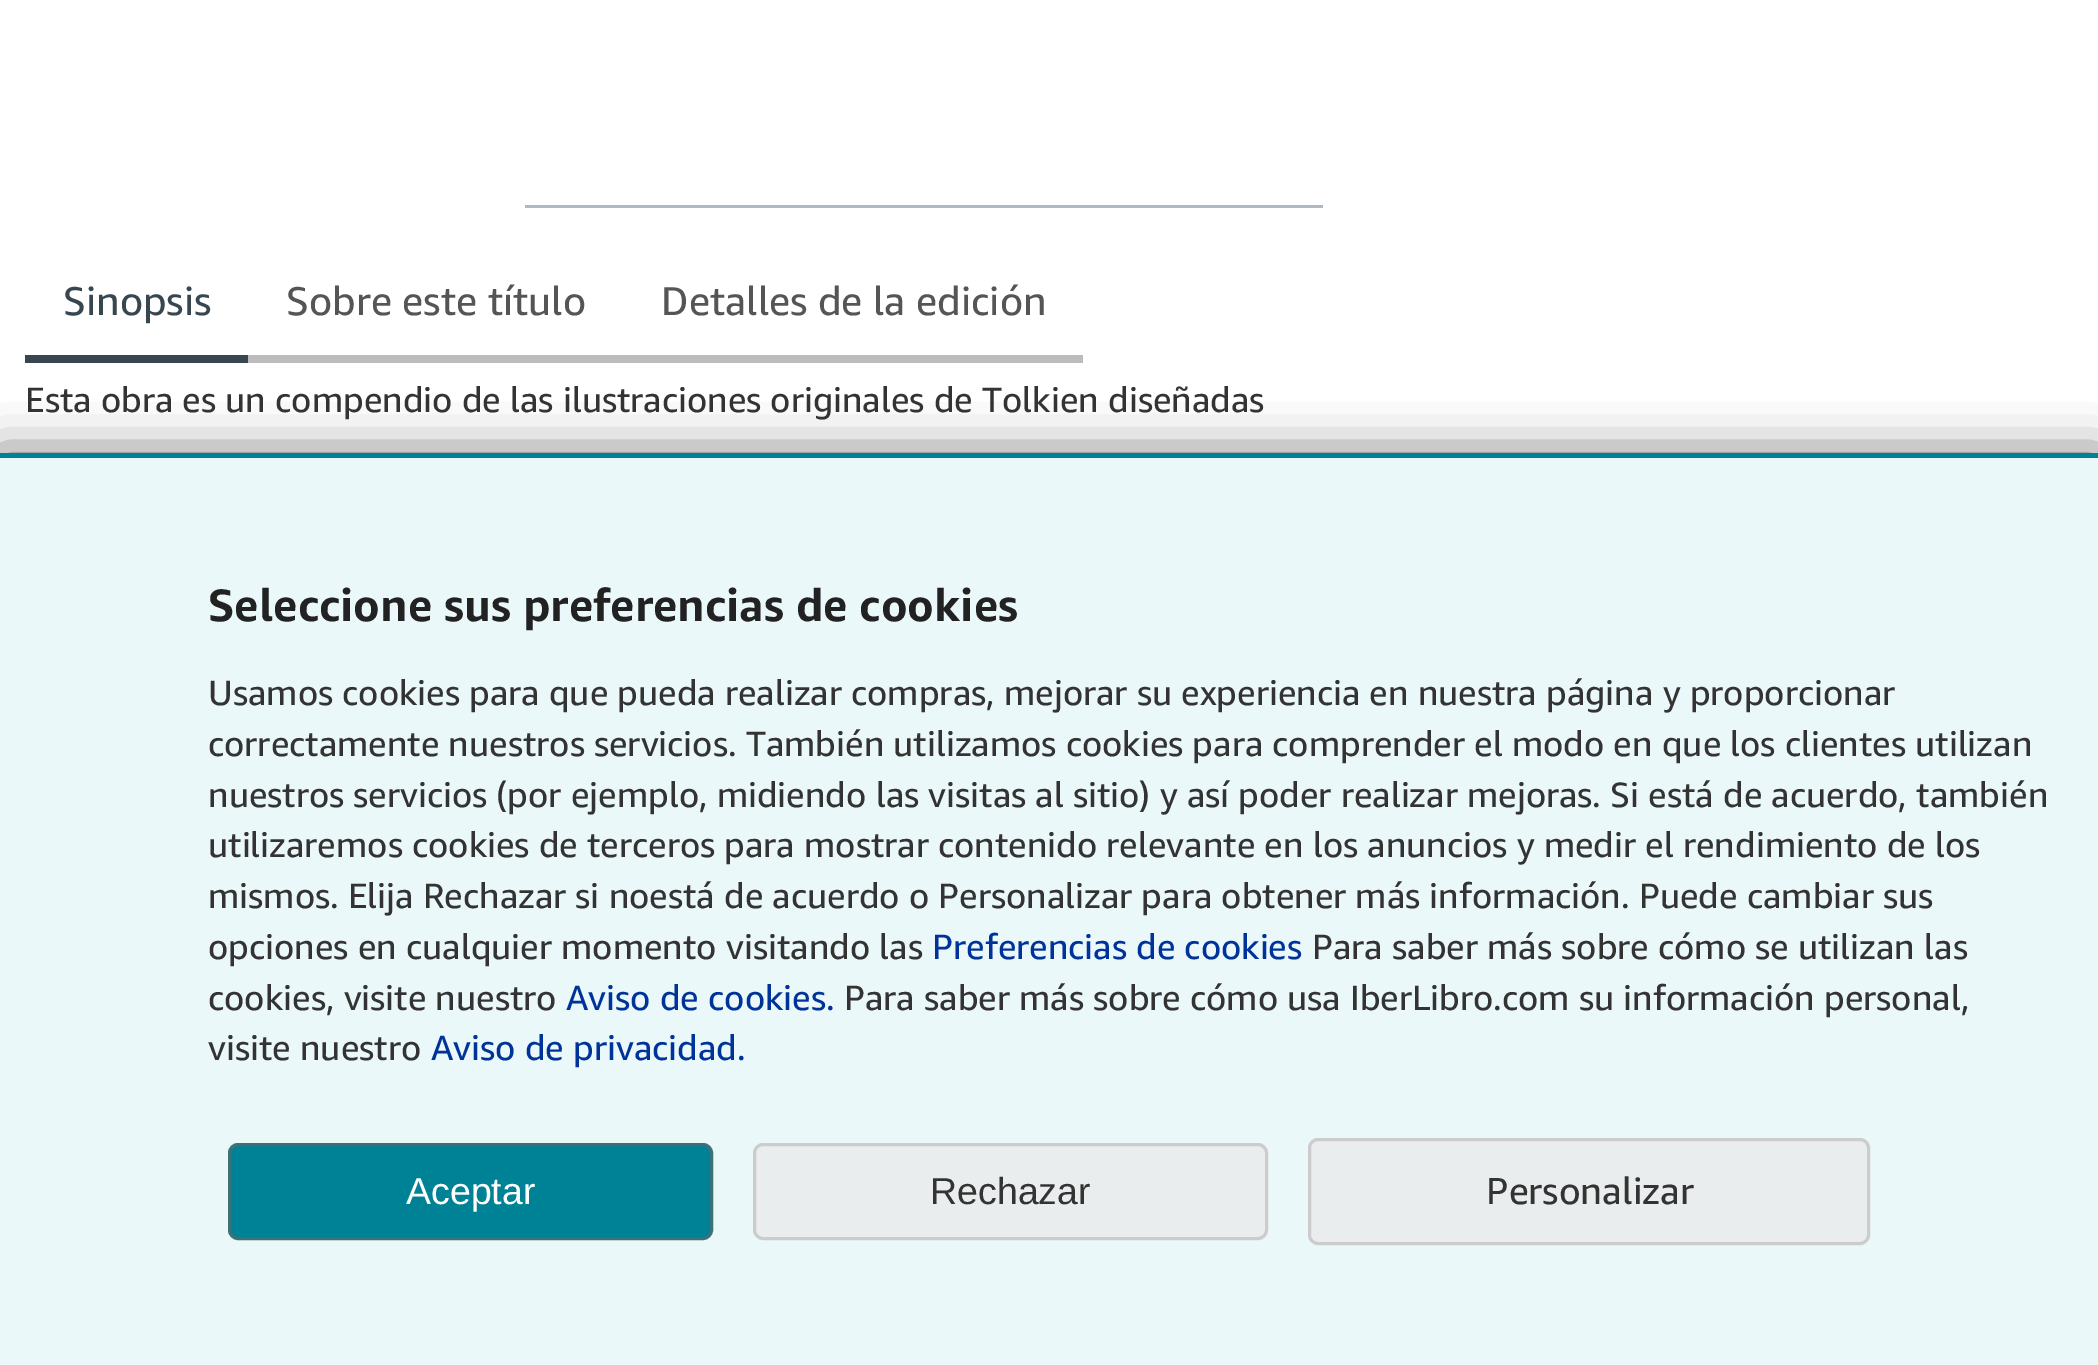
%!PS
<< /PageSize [2098 1365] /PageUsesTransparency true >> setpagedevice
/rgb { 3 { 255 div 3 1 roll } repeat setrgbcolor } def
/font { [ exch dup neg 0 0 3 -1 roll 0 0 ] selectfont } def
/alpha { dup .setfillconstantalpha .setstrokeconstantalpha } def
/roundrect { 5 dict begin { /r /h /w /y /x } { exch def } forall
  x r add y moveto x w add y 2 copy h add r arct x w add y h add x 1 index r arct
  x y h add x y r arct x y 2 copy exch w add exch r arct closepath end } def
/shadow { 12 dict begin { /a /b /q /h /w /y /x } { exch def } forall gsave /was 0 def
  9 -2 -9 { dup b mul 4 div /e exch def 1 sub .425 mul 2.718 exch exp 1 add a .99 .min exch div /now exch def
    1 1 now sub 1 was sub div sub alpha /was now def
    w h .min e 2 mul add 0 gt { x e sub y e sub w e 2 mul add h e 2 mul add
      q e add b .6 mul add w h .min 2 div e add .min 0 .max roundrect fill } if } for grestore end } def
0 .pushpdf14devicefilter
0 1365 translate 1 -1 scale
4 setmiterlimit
255 255 255 rgb
0 0 2098 1365 rectfill
[
  [525 205 798 3 177 186 195]
  [25 355 223 8 56 71 79]
  [248 355 835 8 188 188 188]
] { aload pop rgb rectfill } forall
0 0 0 rgb
0 458 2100 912 0 25 0.7 shadow
235 248 250 rgb
0 458 2098 907 rectfill
0 130 150 rgb
0 453 2098 5 rectfill
229.5 1144.5 482 94 8.5 roundrect gsave fill grestore
61 113 120 rgb
3 setlinewidth
stroke
234 237 237 rgb
754.5 1144.5 512 94 8.5 roundrect gsave fill grestore
204 204 204 rgb
stroke
234 237 237 rgb
1309.5 1139.5 559 104 8.5 roundrect gsave fill grestore
204 204 204 rgb
stroke
/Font-Regular 40 font
56 71 79 rgb
63 315 moveto (Sinopsis) show
85 85 85 rgb
286 315 moveto (Sobre este título) show
661 315 moveto (Detalles de la edición) show
/Font-Regular 35 font
51 51 51 rgb
25 412 moveto (Esta obra es un compendio de las ilustraciones originales de Tolkien diseñadas) show
/Font-Bold 45 font
34 34 34 rgb
208 621 moveto (Seleccione sus preferencias de cookies) show
/Font-Regular 35 font
51 51 51 rgb
[
  [(Usamos cookies para que pueda realizar compras, mejorar su experiencia en nuestra página y proporcionar) 208 705]
  [(correctamente nuestros servicios. También utilizamos cookies para comprender el modo en que los clientes utilizan) 208 756]
  [(nuestros servicios \(por ejemplo, midiendo las visitas al sitio\) y así poder realizar mejoras. Si está de acuerdo, también) 208 807]
  [(utilizaremos cookies de terceros para mostrar contenido relevante en los anuncios y medir el rendimiento de los) 208 857]
  [(mismos. Elija Rechazar si noestá de acuerdo o Personalizar para obtener más información. Puede cambiar sus) 208 908]
  [(opciones en cualquier momento visitando las) 208 959]
] { aload pop moveto show } forall
0 51 153 rgb
932 959 moveto (Preferencias de cookies) show
51 51 51 rgb
1312 959 moveto (Para saber más sobre cómo se utilizan las) show
208 1010 moveto (cookies, visite nuestro) show
0 51 153 rgb
566 1010 moveto (Aviso de cookies.) show
51 51 51 rgb
844 1010 moveto (Para saber más sobre cómo usa IberLibro.com su información personal,) show
208 1060 moveto (visite nuestro) show
0 51 153 rgb
431 1060 moveto (Aviso de privacidad.) show
/LiberationSans-Regular 37.5 font
255 255 255 rgb
406 1204 moveto (Aceptar) show
51 51 51 rgb
930 1204 moveto (Rechazar) show
/Font-Regular 37.5 font
1486 1204 moveto (Personalizar) show
.poppdf14devicefilter showpage
